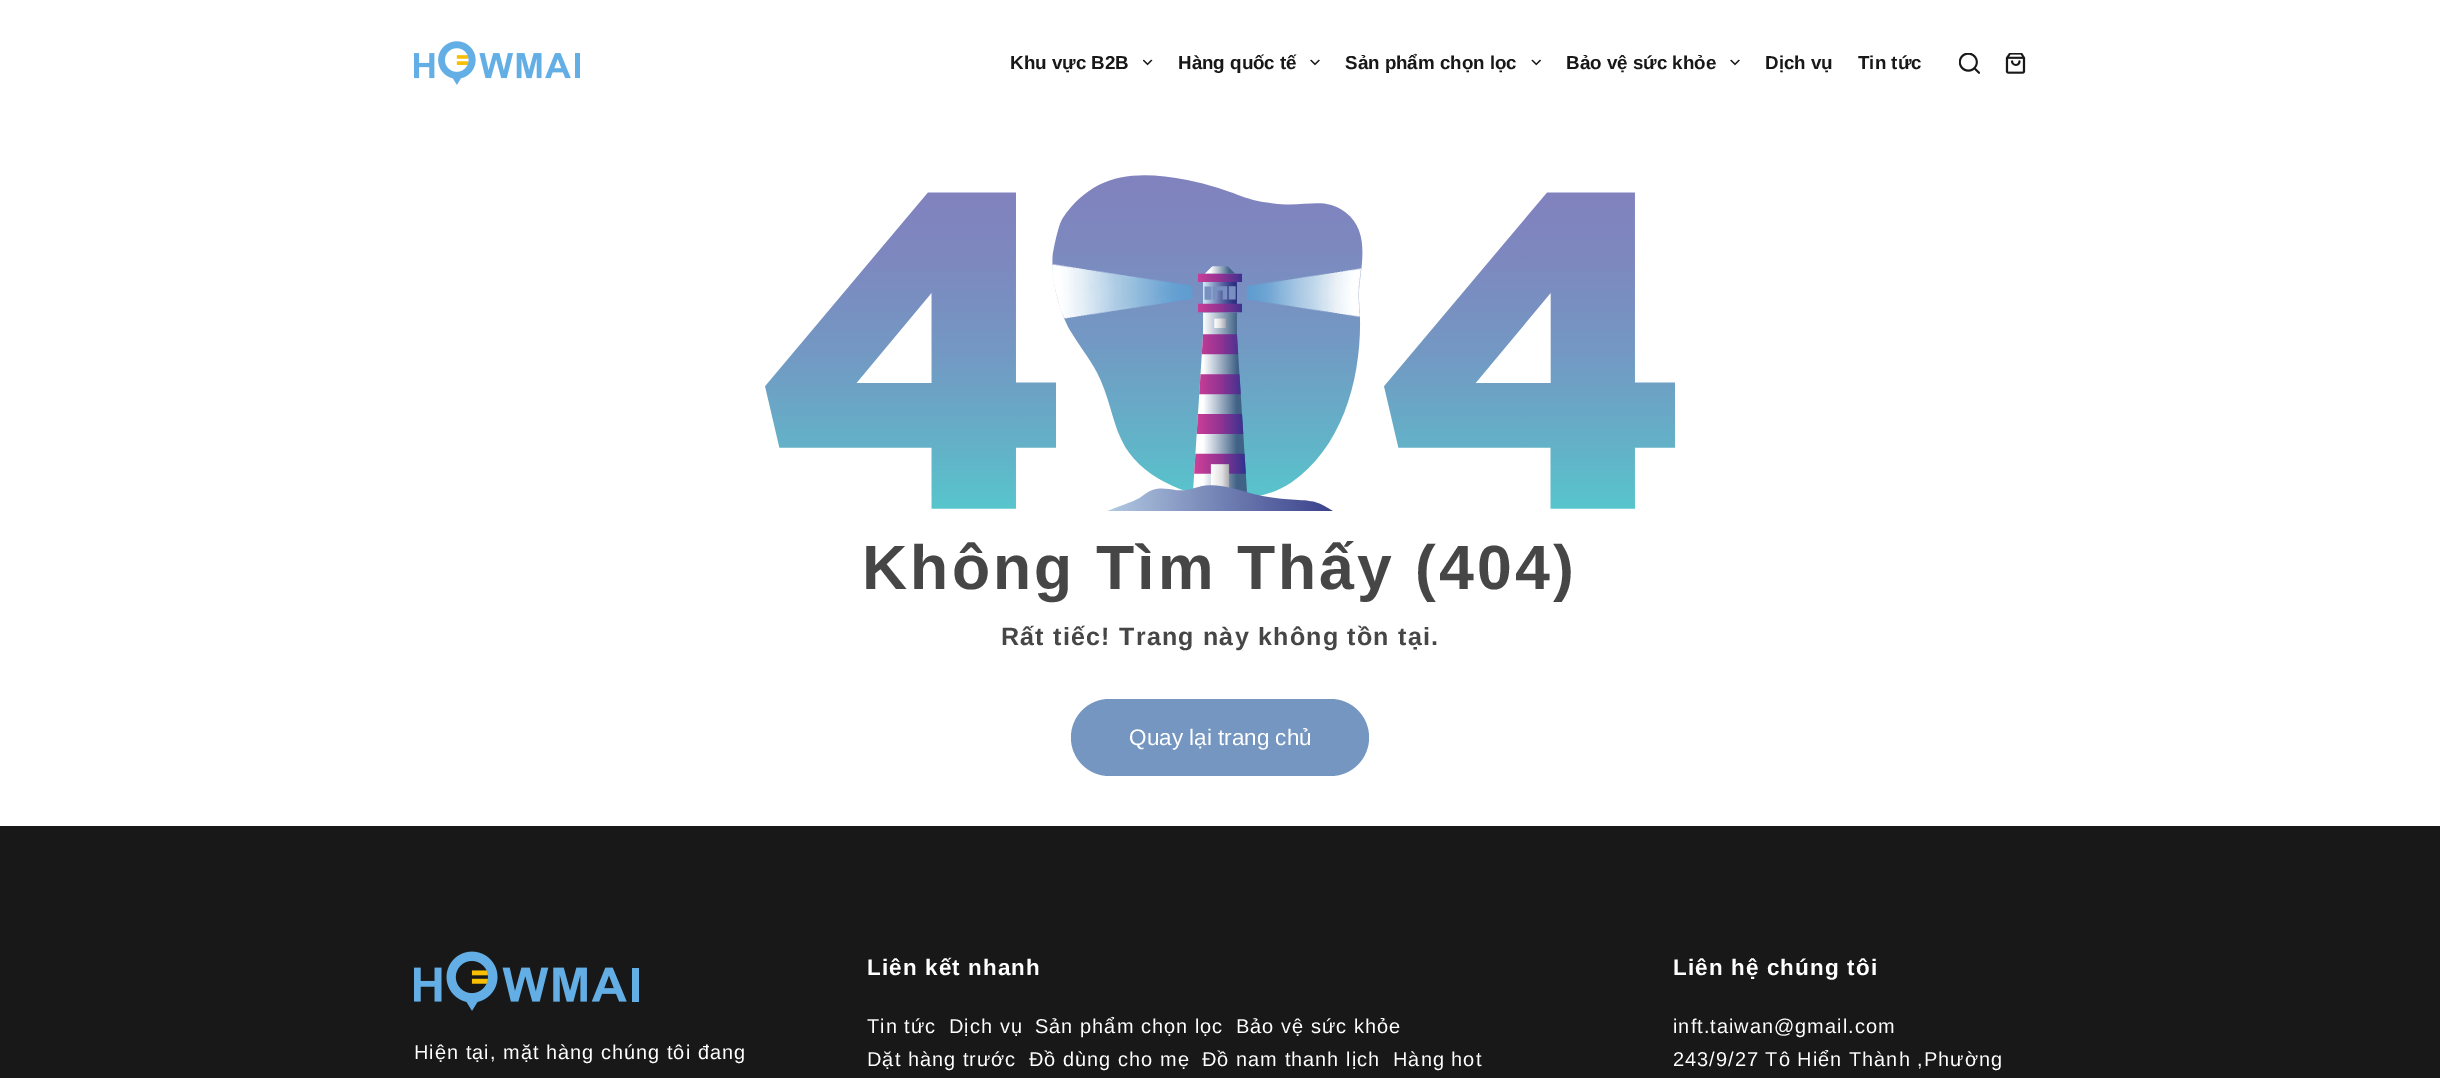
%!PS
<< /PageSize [2440 1078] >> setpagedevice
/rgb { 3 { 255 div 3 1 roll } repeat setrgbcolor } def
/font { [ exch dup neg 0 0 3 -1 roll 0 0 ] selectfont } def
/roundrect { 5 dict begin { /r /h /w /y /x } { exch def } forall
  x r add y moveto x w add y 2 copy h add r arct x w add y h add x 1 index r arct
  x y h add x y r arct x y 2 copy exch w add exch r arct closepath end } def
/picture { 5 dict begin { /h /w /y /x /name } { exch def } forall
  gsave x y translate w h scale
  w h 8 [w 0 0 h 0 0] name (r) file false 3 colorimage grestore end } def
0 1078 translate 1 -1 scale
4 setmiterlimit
255 255 255 rgb
0 0 2440 1078 rectfill
(img/1.rgb) 414 41 166 44 picture
(img/2.rgb) 1143 59 10 7 picture
(img/3.rgb) 1310 59 10 7 picture
(img/4.rgb) 1531 59 10 7 picture
(img/3.rgb) 1730 59 10 7 picture
(img/5.rgb) 1959 53 21 21 picture
(img/6.rgb) 2005 53 21 21 picture
(img/7.rgb) 765 175 910 336 picture
116 150 193 rgb
1071 699 298 77 38.5 roundrect fill
24 24 24 rgb
0 826 2440 252 rectfill
(img/8.rgb) 414 951 225 60 picture
/LiberationSans-Bold 18.75 font
[
  [(Khu vực B2B) 1010 69]
  [(Hàng quốc tế) 1178 69]
  [(Sản phẩm chọn lọc) 1345 69]
  [(Bảo vệ sức khỏe) 1566 69]
  [(Dịch vụ) 1765 69]
  [(Tin tức) 1858 69]
] { aload pop moveto show } forall
/LiberationSans-Bold 62.5 font
70 70 70 rgb
862 589 moveto 3.1 0 (Không Tìm Thấy \(404\)) ashow
/LiberationSans-Bold 25 font
1001 645 moveto 1.25 0 (Rất tiếc! Trang này không tồn tại.) ashow
/LiberationSans-Regular 22.5 font
255 255 255 rgb
1129 745 moveto (Quay lại trang chủ) show
/LiberationSans-Regular 20 font
414 1059 moveto 1 0 (Hiện tại, mặt hàng chúng tôi đang) ashow
/LiberationSans-Bold 22.5 font
867 975 moveto 1.1 0 (Liên kết nhanh) ashow
/LiberationSans-Regular 20 font
867 1033 moveto 1 0 (Tin tức) ashow
949 1033 moveto 1 0 (Dịch vụ) ashow
1035 1033 moveto 1 0 (Sản phẩm chọn lọc) ashow
1236 1033 moveto 1 0 (Bảo vệ sức khỏe) ashow
867 1066 moveto 1 0 (Dặt hàng trước) ashow
1029 1066 moveto 1 0 (Đồ dùng cho mẹ) ashow
1202 1066 moveto 1 0 (Đồ nam thanh lịch) ashow
1393 1066 moveto 1 0 (Hàng hot) ashow
/LiberationSans-Bold 22.5 font
1673 975 moveto 1.1 0 (Liên hệ chúng tôi) ashow
/LiberationSans-Regular 20 font
1673 1033 moveto 1 0 (inft.taiwan@gmail.com) ashow
1673 1066 moveto 1 0 (243/9/27 Tô Hiển Thành ,Phường) ashow
showpage
